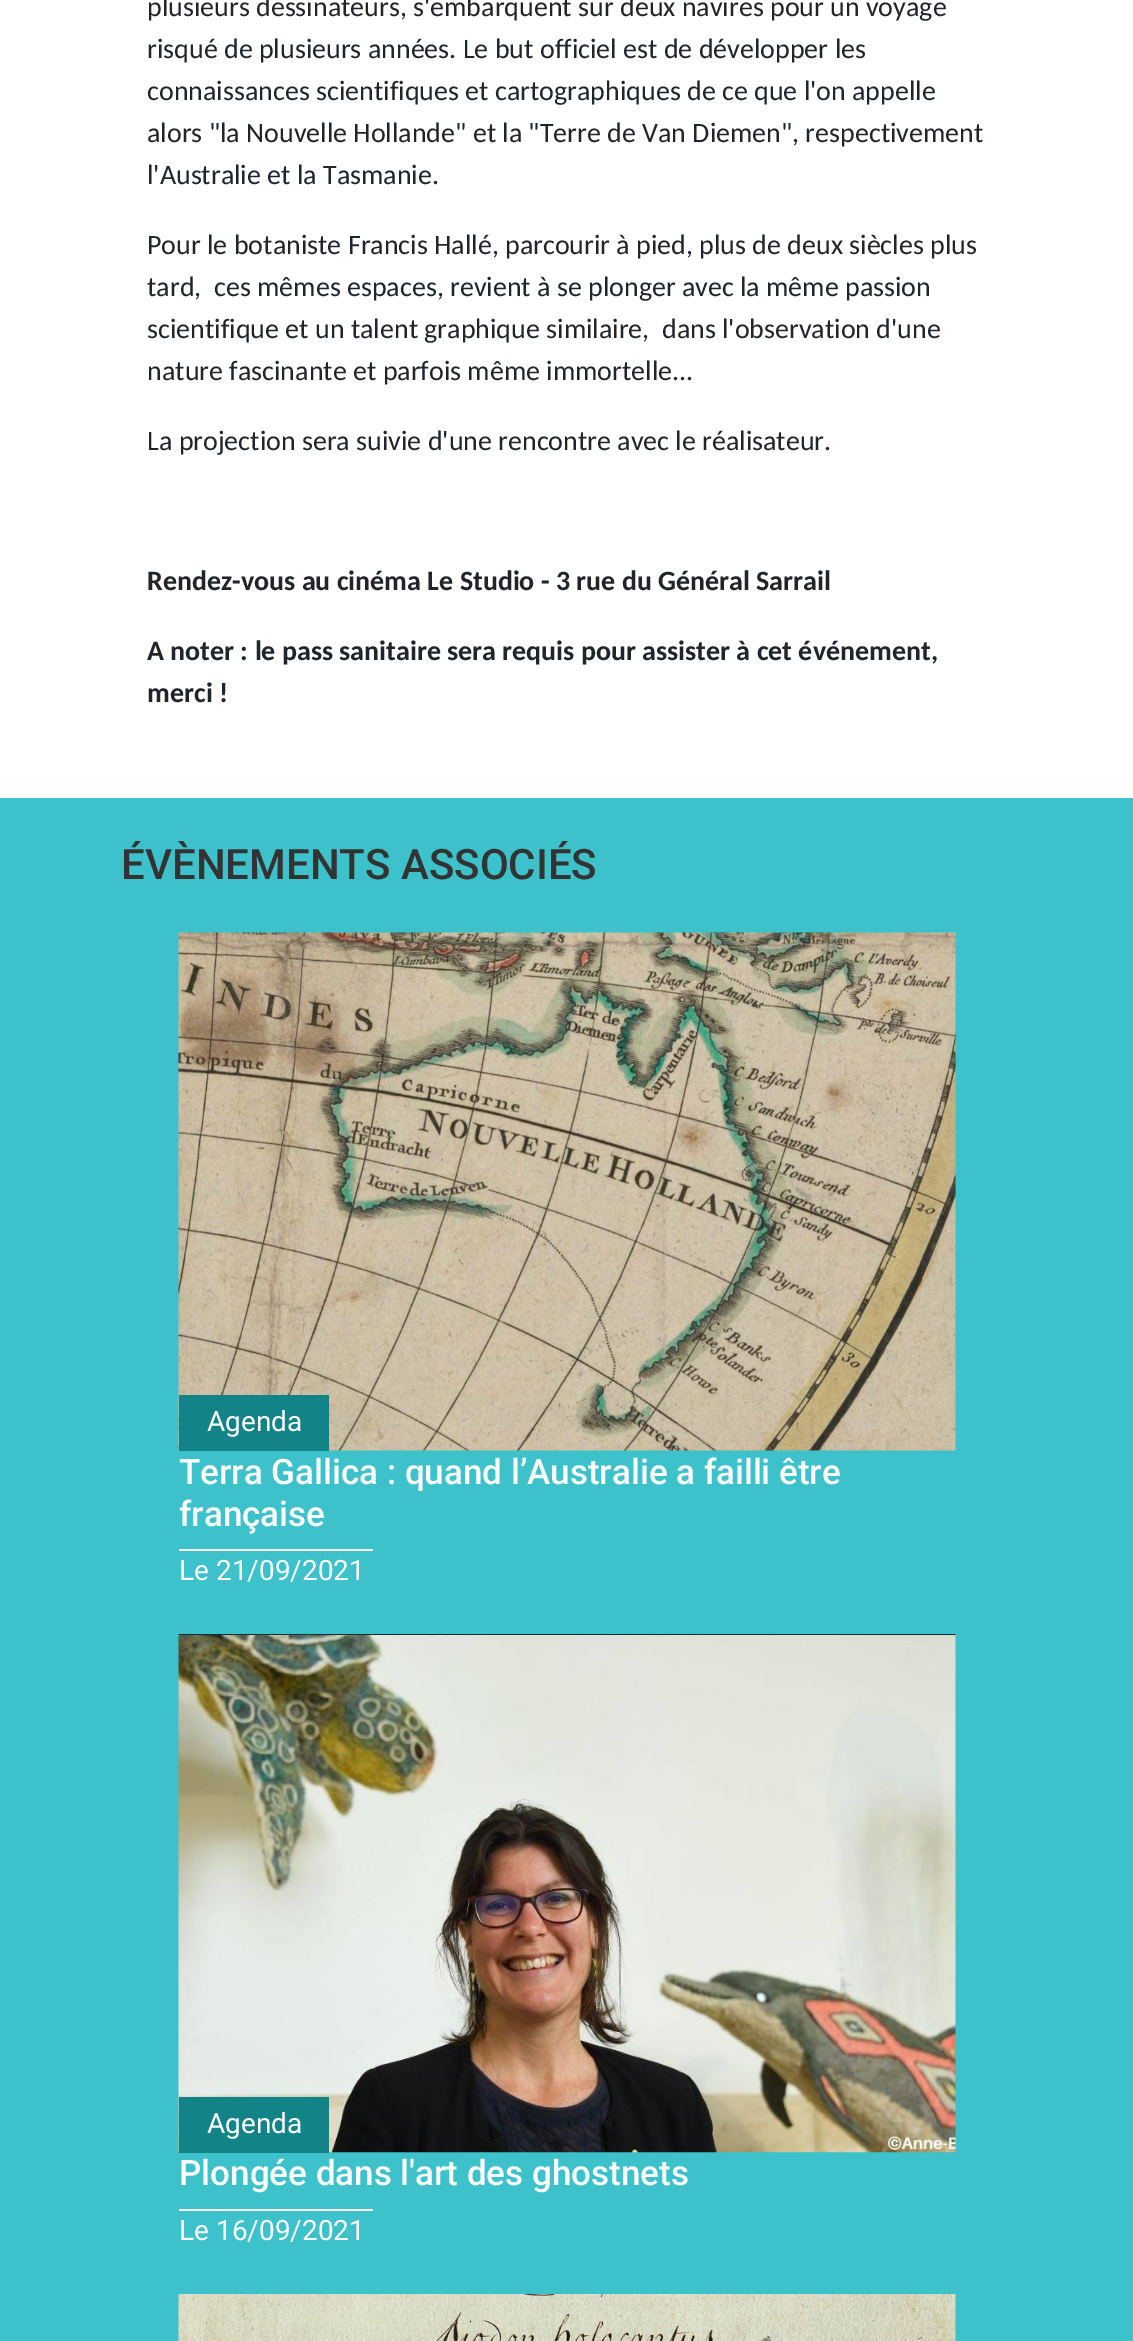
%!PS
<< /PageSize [1133 2341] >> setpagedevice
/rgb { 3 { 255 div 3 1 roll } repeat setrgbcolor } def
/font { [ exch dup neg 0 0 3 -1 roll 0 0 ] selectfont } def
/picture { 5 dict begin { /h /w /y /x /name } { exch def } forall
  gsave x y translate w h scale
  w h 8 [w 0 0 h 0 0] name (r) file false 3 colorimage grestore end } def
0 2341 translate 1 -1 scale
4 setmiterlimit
255 255 255 rgb
0 0 1133 2341 rectfill
61 193 202 rgb
0 798 1133 1543 rectfill
(img/1.rgb) 178 932 778 519 picture
18 131 135 rgb
179 1395 150 56 rectfill
255 255 255 rgb
179 1549 194 2 rectfill
(img/2.rgb) 178 1634 778 519 picture
18 131 135 rgb
179 2097 150 56 rectfill
255 255 255 rgb
179 2209 194 2 rectfill
(img/3.rgb) 178 2294 778 47 picture
/Carlito-Regular 28 font
33 37 41 rgb
[
  [(plusieurs dessinateurs, s'embarquent sur deux navires pour un voyage) 147 16]
  [(risqué de plusieurs années. Le but officiel est de développer les) 147 58]
  [(connaissances scientifiques et cartographiques de ce que l'on appelle) 147 100]
  [(alors "la Nouvelle Hollande" et la "Terre de Van Diemen", respectivement) 147 142]
  [(l'Australie et la Tasmanie.) 147 184]
  [(Pour le botaniste Francis Hallé, parcourir à pied, plus de deux siècles plus) 147 254]
  [(tard,  ces mêmes espaces, revient à se plonger avec la même passion) 147 296]
  [(scientifique et un talent graphique similaire,  dans l'observation d'une) 147 338]
  [(nature fascinante et parfois même immortelle...) 147 380]
  [(La projection sera suivie d'une rencontre avec le réalisateur.) 147 450]
] { aload pop moveto show } forall
/Carlito-Bold 28 font
[
  [(Rendez-vous au cinéma Le Studio - 3 rue du Général Sarrail) 147 590]
  [(A noter : le pass sanitaire sera requis pour assister à cet événement,) 147 660]
  [(merci !) 147 702]
] { aload pop moveto show } forall
/Roboto-Medium 42 font
51 51 51 rgb
121 879 moveto (ÉVÈNEMENTS ASSOCIÉS) show
/Roboto-Regular 28 font
255 255 255 rgb
207 1431 moveto (Agenda) show
/Roboto-Medium 35 font
179 1484 moveto (Terra Gallica : quand l’Australie a failli être) show
179 1526 moveto (française) show
/Roboto-Regular 28 font
179 1580 moveto (Le 21/09/2021) show
207 2133 moveto (Agenda) show
/Roboto-Medium 35 font
179 2185 moveto (Plongée dans l'art des ghostnets) show
/Roboto-Regular 28 font
179 2240 moveto (Le 16/09/2021) show
showpage
